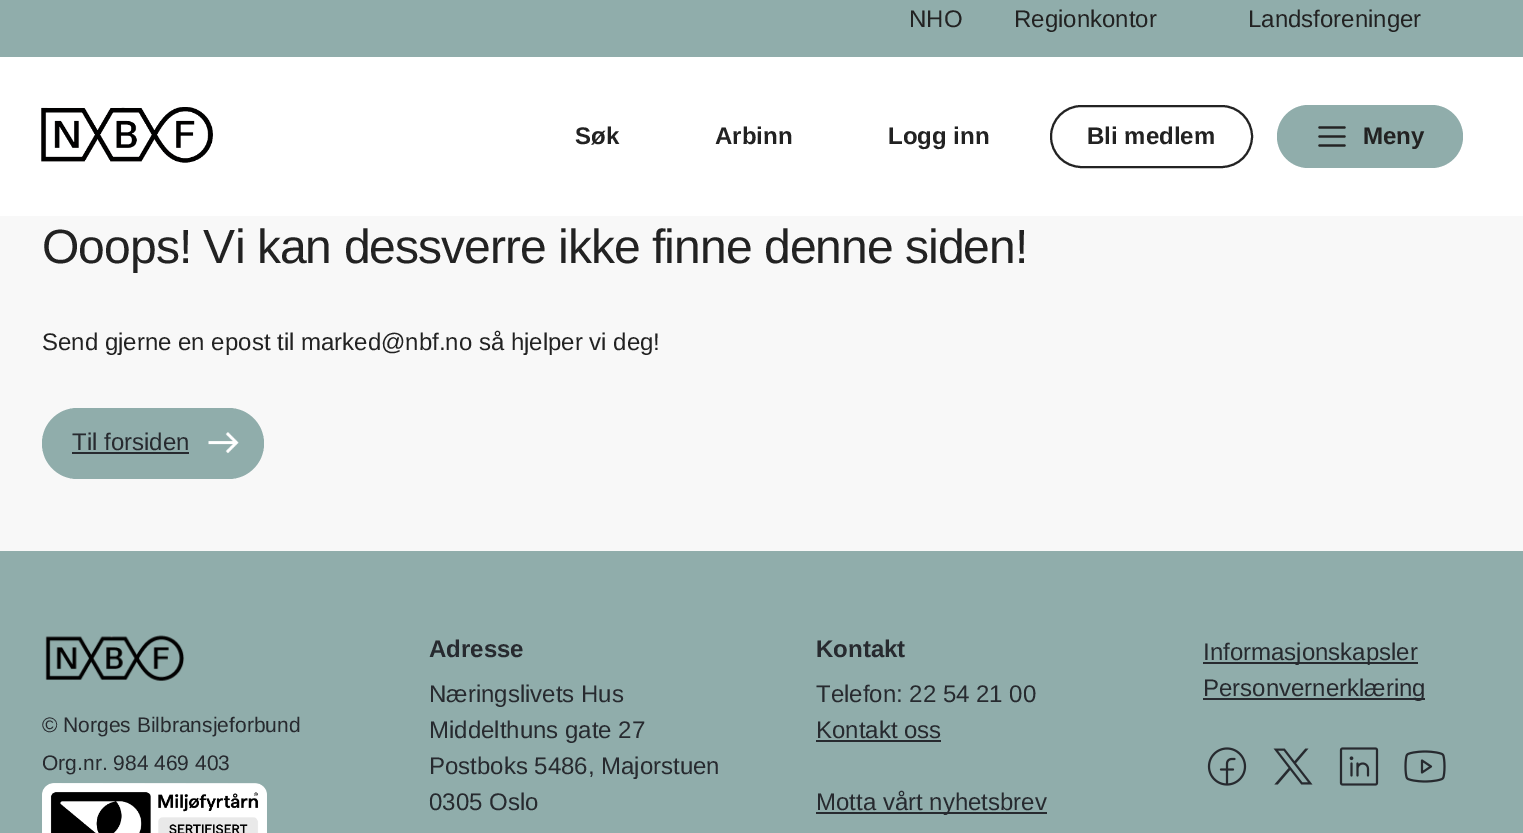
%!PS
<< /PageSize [1523 833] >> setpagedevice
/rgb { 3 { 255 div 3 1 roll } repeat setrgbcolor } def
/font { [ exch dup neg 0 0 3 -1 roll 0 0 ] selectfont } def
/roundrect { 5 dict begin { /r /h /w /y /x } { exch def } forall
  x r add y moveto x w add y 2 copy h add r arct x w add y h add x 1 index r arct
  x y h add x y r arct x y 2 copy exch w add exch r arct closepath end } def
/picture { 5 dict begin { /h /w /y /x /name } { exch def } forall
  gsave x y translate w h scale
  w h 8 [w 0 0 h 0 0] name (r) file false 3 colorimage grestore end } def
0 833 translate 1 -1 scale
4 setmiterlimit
248 248 248 rgb
0 0 1523 833 rectfill
255 255 255 rgb
0 57 1523 159 rectfill
144 173 171 rgb
0 0 1523 57 rectfill
(img/1.rgb) 41 107 172 56 picture
35 35 35 rgb
2 setlinewidth
1051 106 201 61 30.5 roundrect stroke
144 173 171 rgb
1277 105 186 63 31.5 roundrect fill
35 35 35 rgb
2.2 setlinewidth
1 setlinecap
1 setlinejoin
1319.5 136.5 moveto 1344.5 136.5 lineto 1319.5 127.5 moveto 1344.5 127.5 lineto 1319.5 145.5 moveto 1344.5 145.5 lineto stroke
144 173 171 rgb
42 408 222 71 35.5 roundrect fill
39 42 47 rgb
72 452 117 2 rectfill
(img/2.rgb) 208 432 31 22 picture
[
  [0 551 1523 282 144 173 171]
  [816 740 125 2 39 42 47]
  [816 812 231 2 39 42 47]
  [1203 662 215 2 39 42 47]
  [1203 698 222 2 39 42 47]
] { aload pop rgb rectfill } forall
(img/3.rgb) 1207 747 40 39 picture
(img/4.rgb) 1273 748 40 37 picture
(img/5.rgb) 1339 747 40 39 picture
(img/6.rgb) 1404 750 42 33 picture
(img/7.rgb) 45 635 140 46 picture
(img/8.rgb) 42 783 225 50 picture
/LiberationSans-Regular 24 font
34 34 34 rgb
[
  [(NHO) 909 27]
  [(Regionkontor) 1014 27]
  [(Landsforeninger) 1248 27]
] { aload pop moveto show } forall
/LiberationSans-Bold 24 font
[
  [(Søk) 575 144]
  [(Arbinn) 715 144]
  [(Logg inn) 888 144]
  [(Bli medlem) 1087 144]
  [(Meny) 1363 144]
] { aload pop moveto show } forall
/LiberationSans-Regular 48 font
42 263 moveto -0.95 0 (Ooops! Vi kan dessverre ikke finne denne siden!) ashow
/LiberationSans-Regular 24 font
42 350 moveto (Send gjerne en epost til marked@nbf.no så hjelper vi deg!) show
39 42 47 rgb
72 450 moveto (Til forsiden) show
/LiberationSans-Bold 24 font
429 657 moveto (Adresse) show
/LiberationSans-Regular 24 font
[
  [(Næringslivets Hus) 429 702]
  [(Middelthuns gate 27) 429 738]
  [(Postboks 5486, Majorstuen) 429 774]
  [(0305 Oslo) 429 810]
] { aload pop moveto show } forall
/LiberationSans-Bold 24 font
816 657 moveto (Kontakt) show
/LiberationSans-Regular 24 font
[
  [(Telefon: 22 54 21 00) 816 702]
  [(Kontakt oss) 816 738]
  [(Motta vårt nyhetsbrev) 816 810]
  [(Informasjonskapsler) 1203 660]
  [(Personvernerklæring) 1203 696]
] { aload pop moveto show } forall
/LiberationSans-Regular 21 font
42 732 moveto (© Norges Bilbransjeforbund) show
42 770 moveto (Org.nr. 984 469 403) show
showpage
